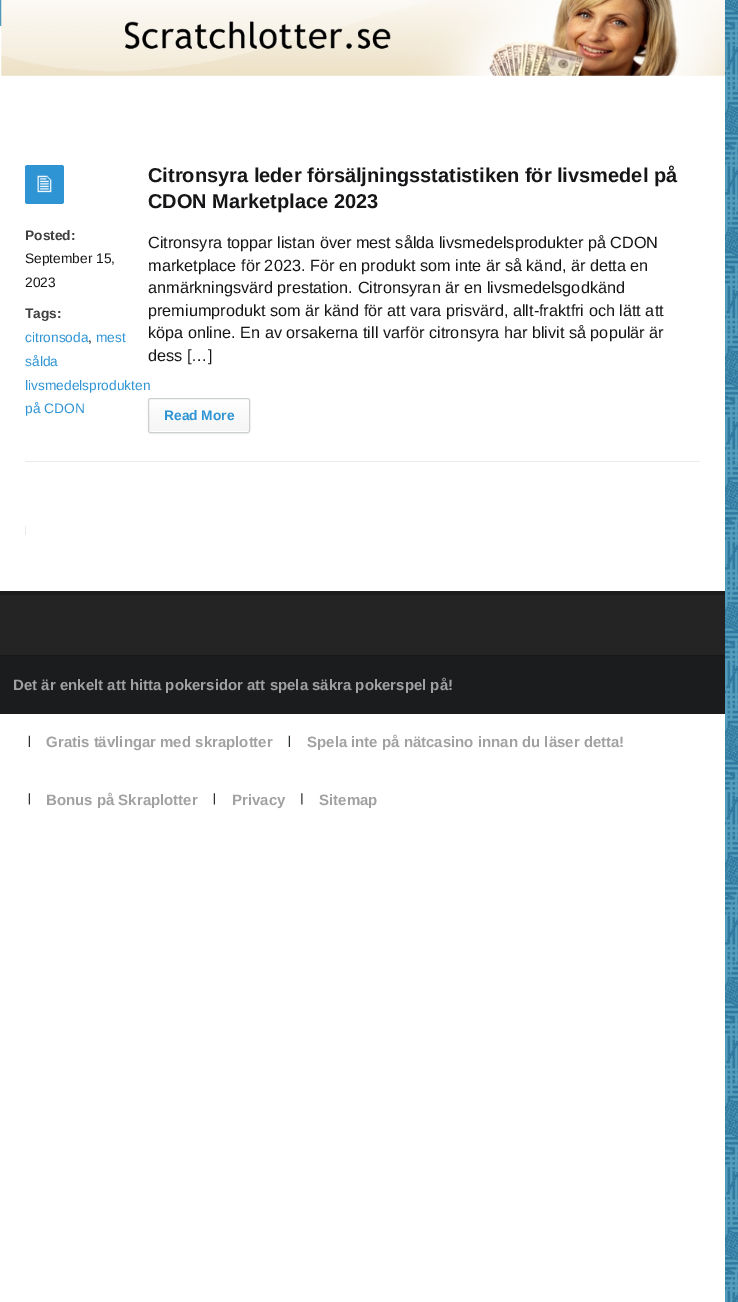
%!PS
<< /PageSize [738 1302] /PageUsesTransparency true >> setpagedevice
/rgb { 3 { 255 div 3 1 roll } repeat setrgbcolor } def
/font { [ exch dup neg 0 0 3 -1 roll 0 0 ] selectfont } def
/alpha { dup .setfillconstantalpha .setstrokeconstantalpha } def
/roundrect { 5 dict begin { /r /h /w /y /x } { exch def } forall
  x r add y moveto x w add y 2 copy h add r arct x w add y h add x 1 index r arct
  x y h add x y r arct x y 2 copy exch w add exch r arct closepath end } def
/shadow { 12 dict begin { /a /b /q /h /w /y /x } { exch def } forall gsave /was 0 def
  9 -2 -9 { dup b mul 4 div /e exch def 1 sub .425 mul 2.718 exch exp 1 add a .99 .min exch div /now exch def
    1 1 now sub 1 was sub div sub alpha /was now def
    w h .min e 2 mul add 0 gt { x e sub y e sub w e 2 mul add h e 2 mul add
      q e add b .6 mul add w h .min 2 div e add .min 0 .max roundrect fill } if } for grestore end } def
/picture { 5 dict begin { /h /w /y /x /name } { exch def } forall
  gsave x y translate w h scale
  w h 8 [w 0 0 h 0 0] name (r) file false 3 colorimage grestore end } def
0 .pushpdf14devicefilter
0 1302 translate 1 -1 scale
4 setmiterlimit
255 255 255 rgb
0 0 738 1302 rectfill
(img/1.rgb) 0 0 738 1302 picture
0 26 725 1276 rectfill
(img/2.rgb) 1 0 724 76 picture
47 148 212 rgb
25 165 39 39 2.5 roundrect fill
(img/3.rgb) 37 175 15 18 picture
0 0 0 rgb
148 399 102 35 2.5 1 0.05 shadow
gsave 148 399 moveto 250 399 lineto 250 431 lineto 148 431 lineto closepath clip newpath
<< /ShadingType 2 /ColorSpace /DeviceRGB /Coords [199 399 199 431] /Extend [true true] /Function << /FunctionType 2 /Domain [0 1] /C0 [1 1 1] /C1 [0.961 0.961 0.961] /N 1 >> >> shfill grestore
gsave
148 398 102 35 2.5 roundrect clip newpath
gsave 148 431 moveto 250 431 lineto 250 433 lineto 148 433 lineto closepath clip newpath
<< /ShadingType 2 /ColorSpace /DeviceRGB /Coords [199 431 199 464] /Extend [true true] /Function << /FunctionType 2 /Domain [0 1] /C0 [1 1 1] /C1 [0.961 0.961 0.961] /N 1 >> >> shfill grestore
grestore
205 208 209 rgb
148.5 398.5 101 34 2 roundrect stroke
[
  [25 461 675 1 235 235 235]
  [25 526 1 9 235 235 235]
  [0 591 725 4 26 28 30]
  [0 595 725 60 36 36 36]
  [0 656 725 58 26 28 30]
  [0 655 725 1 22 24 26]
] { aload pop rgb rectfill } forall
(img/4.rgb) 28 735 2 12 picture
(img/4.rgb) 288 735 2 12 picture
(img/5.rgb) 28 793 2 12 picture
(img/5.rgb) 213 793 2 12 picture
(img/6.rgb) 301 793 2 12 picture
/LiberationSans-Bold 13.75 font
64 64 64 rgb
25 240 moveto (Posted:) show
/LiberationSans-Regular 13.75 font
22 22 24 rgb
25 263 moveto (September 15,) show
25 287 moveto (2023) show
/LiberationSans-Bold 13.75 font
64 64 64 rgb
25 318 moveto (Tags:) show
/LiberationSans-Regular 13.75 font
47 148 212 rgb
25 342 moveto (citronsoda) show
22 22 24 rgb
88 342 moveto (,) show
47 148 212 rgb
[
  [(mest) 96 342]
  [(sålda) 25 366]
  [(livsmedelsprodukten) 25 390]
  [(på CDON) 25 413]
] { aload pop moveto show } forall
/LiberationSans-Bold 20 font
22 22 24 rgb
148 182 moveto (Citronsyra leder försäljningsstatistiken för livsmedel på) show
148 208 moveto (CDON Marketplace 2023) show
/LiberationSans-Regular 16.25 font
[
  [(Citronsyra toppar listan över mest sålda livsmedelsprodukter på CDON) 148 248]
  [(marketplace för 2023. För en produkt som inte är så känd, är detta en) 148 271]
  [(anmärkningsvärd prestation. Citronsyran är en livsmedelsgodkänd) 148 293]
  [(premiumprodukt som är känd för att vara prisvärd, allt-fraktfri och lätt att) 148 316]
  [(köpa online. En av orsakerna till varför citronsyra har blivit så populär är) 148 338]
  [(dess […]) 148 361]
] { aload pop moveto show } forall
/LiberationSans-Bold 13.75 font
47 148 212 rgb
164 420 moveto (Read More) show
/LiberationSans-Bold 15 font
161 161 161 rgb
[
  [(Det är enkelt att hitta pokersidor att spela säkra pokerspel på!) 13 690]
  [(Gratis tävlingar med skraplotter) 46 747]
  [(Spela inte på nätcasino innan du läser detta!) 307 747]
  [(Bonus på Skraplotter) 46 805]
  [(Privacy) 232 805]
  [(Sitemap) 319 805]
] { aload pop moveto show } forall
.poppdf14devicefilter showpage
